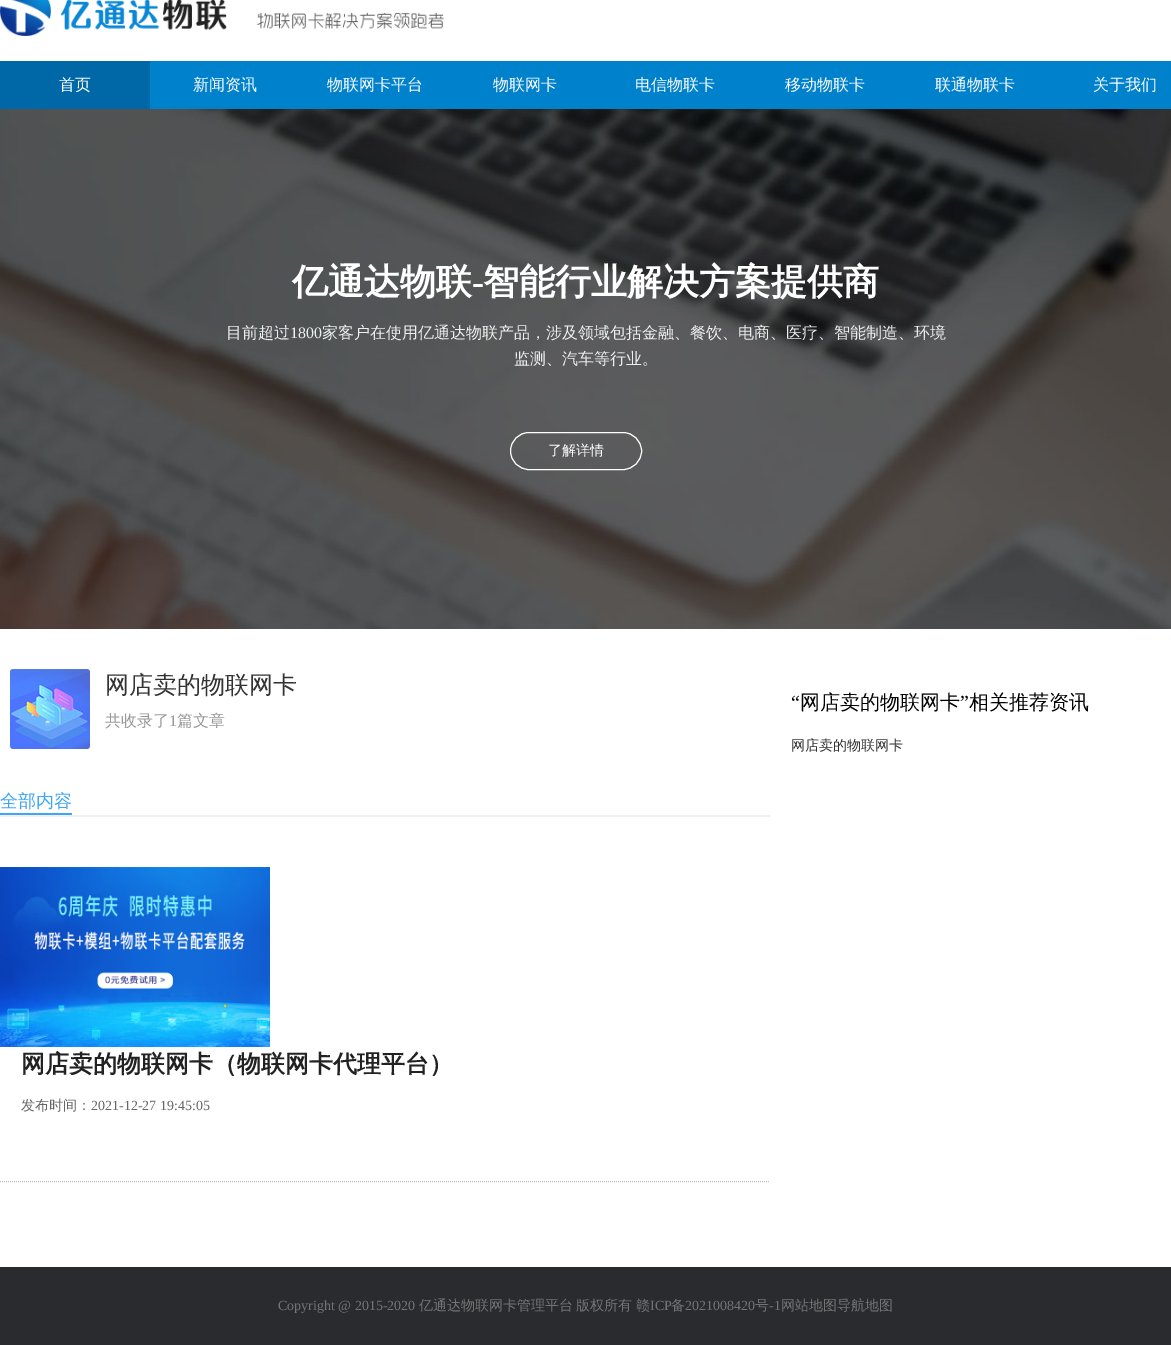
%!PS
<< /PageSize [1171 1345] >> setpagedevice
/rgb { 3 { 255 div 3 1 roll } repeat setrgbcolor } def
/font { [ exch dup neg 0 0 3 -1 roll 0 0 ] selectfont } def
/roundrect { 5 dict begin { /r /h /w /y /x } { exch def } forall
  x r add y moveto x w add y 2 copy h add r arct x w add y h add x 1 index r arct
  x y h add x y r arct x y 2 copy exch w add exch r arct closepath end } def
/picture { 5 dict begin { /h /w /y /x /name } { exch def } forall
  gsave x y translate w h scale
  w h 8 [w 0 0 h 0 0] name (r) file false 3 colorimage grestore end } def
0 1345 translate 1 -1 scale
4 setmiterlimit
255 255 255 rgb
0 0 1171 1345 rectfill
(img/1.rgb) 0 0 444 36 picture
0 129 204 rgb
150 61 1021 48 rectfill
0 104 166 rgb
0 61 150 48 rectfill
(img/2.rgb) 0 109 1171 520 picture
255 255 255 rgb
510.5 432.5 131 37 18.5 roundrect stroke
(img/3.rgb) 10 669 80 80 picture
240 240 240 rgb
0 815 770 2 rectfill
61 166 247 rgb
0 813 72 2 rectfill
192 194 195 rgb
[1 1] 0 setdash
0 1181.5 moveto 770 1181.5 lineto stroke
(img/4.rgb) 0 867 270 180 picture
41 43 47 rgb
0 1267 1171 78 rectfill
/WenQuanYiZenHei-Medium 16 font
255 255 255 rgb
[
  [(首页) 59 90]
  [(新闻资讯) 193 90]
  [(物联网卡平台) 327 90]
  [(物联网卡) 493 90]
  [(电信物联卡) 635 90]
  [(移动物联卡) 785 90]
  [(联通物联卡) 935 90]
  [(关于我们) 1093 90]
] { aload pop moveto show } forall
/WenQuanYiZenHei-Bold 36 font
292 294 moveto (亿通达物联) show
/LiberationSerif-Bold 36 font
472 294 moveto (-) show
/WenQuanYiZenHei-Bold 36 font
483 294 moveto (智能行业解决方案提供商) show
/WenQuanYiZenHei-Medium 16 font
237 238 238 rgb
226 338 moveto (目前超过) show
/LiberationSerif-Regular 16 font
290 338 moveto (1800) show
/WenQuanYiZenHei-Medium 16 font
322 338 moveto (家客户在使用亿通达物联产品，涉及领域包括金融、餐饮、电商、医疗、智能制造、环境) show
514 364 moveto (监测、汽车等行业。) show
/WenQuanYiZenHei-Medium 14 font
255 255 255 rgb
548 455 moveto (了解详情) show
/WenQuanYiZenHei-Medium 24 font
51 51 51 rgb
105 693 moveto (网店卖的物联网卡) show
/WenQuanYiZenHei-Medium 16 font
153 153 153 rgb
105 726 moveto (共收录了) show
/LiberationSerif-Regular 16 font
169 726 moveto (1) show
/WenQuanYiZenHei-Medium 16 font
177 726 moveto (篇文章) show
/WenQuanYiZenHei-Medium 18 font
61 166 247 rgb
0 807 moveto (全部内容) show
/WenQuanYiZenHei-Bold 24 font
34 34 34 rgb
21 1072 moveto (网店卖的物联网卡（物联网卡代理平台）) show
/WenQuanYiZenHei-Medium 14 font
102 102 102 rgb
21 1110 moveto (发布时间：) show
/LiberationSerif-Regular 14 font
91 1110 moveto (2021-12-27 19:45:05) show
/LiberationSerif-Regular 20 font
0 0 0 rgb
791 709 moveto (“) show
/WenQuanYiZenHei-Medium 20 font
800 709 moveto (网店卖的物联网卡) show
/LiberationSerif-Regular 20 font
960 709 moveto (”) show
/WenQuanYiZenHei-Medium 20 font
969 709 moveto (相关推荐资讯) show
/WenQuanYiZenHei-Medium 14 font
51 51 51 rgb
791 750 moveto (网店卖的物联网卡) show
/LiberationSerif-Regular 14 font
116 116 117 rgb
278 1310 moveto (Copyright @ 2015-2020) show
/WenQuanYiZenHei-Medium 14 font
[
  [(亿通达物联网卡管理平台) 419 1310]
  [(版权所有) 576 1310]
  [(赣) 636 1310]
] { aload pop moveto show } forall
/LiberationSerif-Regular 14 font
650 1310 moveto (ICP) show
/WenQuanYiZenHei-Medium 14 font
671 1310 moveto (备) show
/LiberationSerif-Regular 14 font
685 1310 moveto (2021008420) show
/WenQuanYiZenHei-Medium 14 font
755 1310 moveto (号) show
/LiberationSerif-Regular 14 font
769 1310 moveto (-1) show
/WenQuanYiZenHei-Medium 14 font
781 1310 moveto (网站地图导航地图) show
showpage
